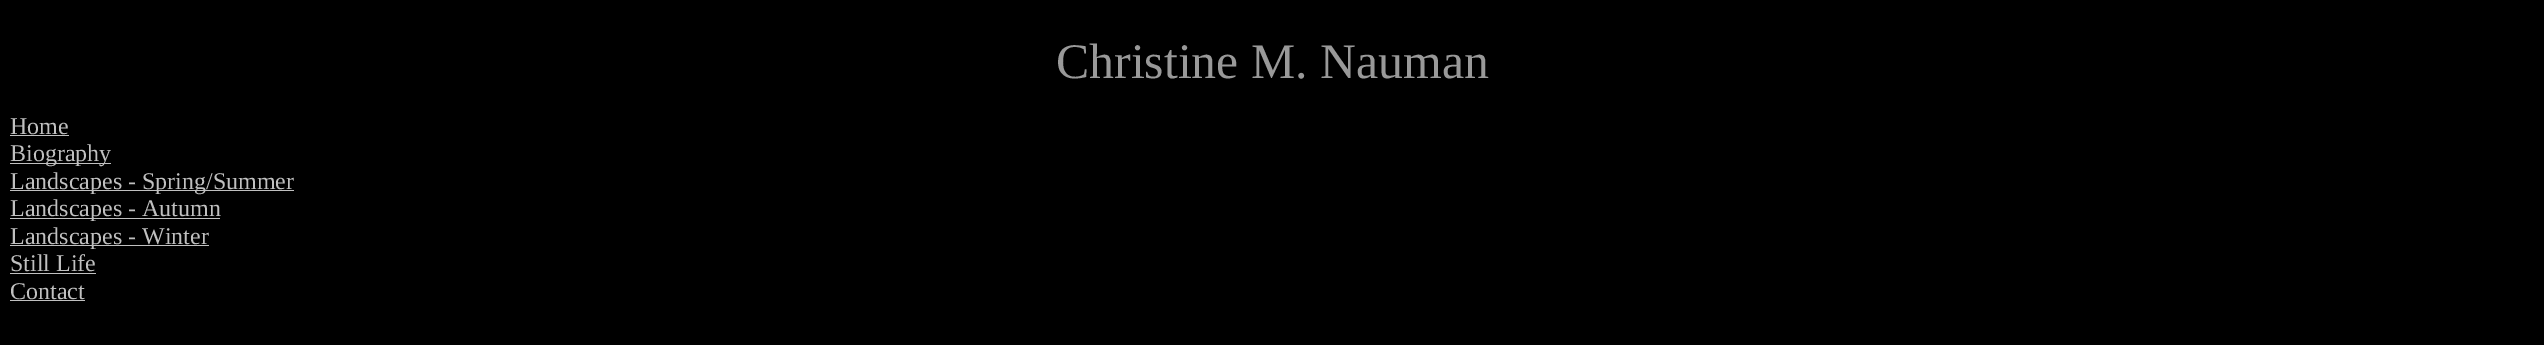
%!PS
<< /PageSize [2544 345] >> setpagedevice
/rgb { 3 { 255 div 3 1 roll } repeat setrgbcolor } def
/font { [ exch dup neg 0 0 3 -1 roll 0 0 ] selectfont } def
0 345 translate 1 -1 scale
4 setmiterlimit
0 0 0 rgb
0 0 2544 345 rectfill
[
  [10 135 59 1 192 192 192]
  [10 163 101 1 192 192 192]
  [10 190 284 1 192 192 192]
  [10 218 210 1 192 192 192]
  [10 245 199 1 192 192 192]
  [10 273 86 1 192 192 192]
  [10 300 75 1 192 192 192]
] { aload pop rgb rectfill } forall
/LiberationSerif-Regular 49.75 font
153 153 153 rgb
1056 78 moveto (Christine M. Nauman) show
/LiberationSerif-Regular 24 font
192 192 192 rgb
[
  [(Home) 10 134]
  [(Biography) 10 161]
  [(Landscapes - Spring/Summer) 10 189]
  [(Landscapes - Autumn) 10 216]
  [(Landscapes - Winter) 10 244]
  [(Still Life) 10 271]
  [(Contact) 10 299]
] { aload pop moveto show } forall
showpage
